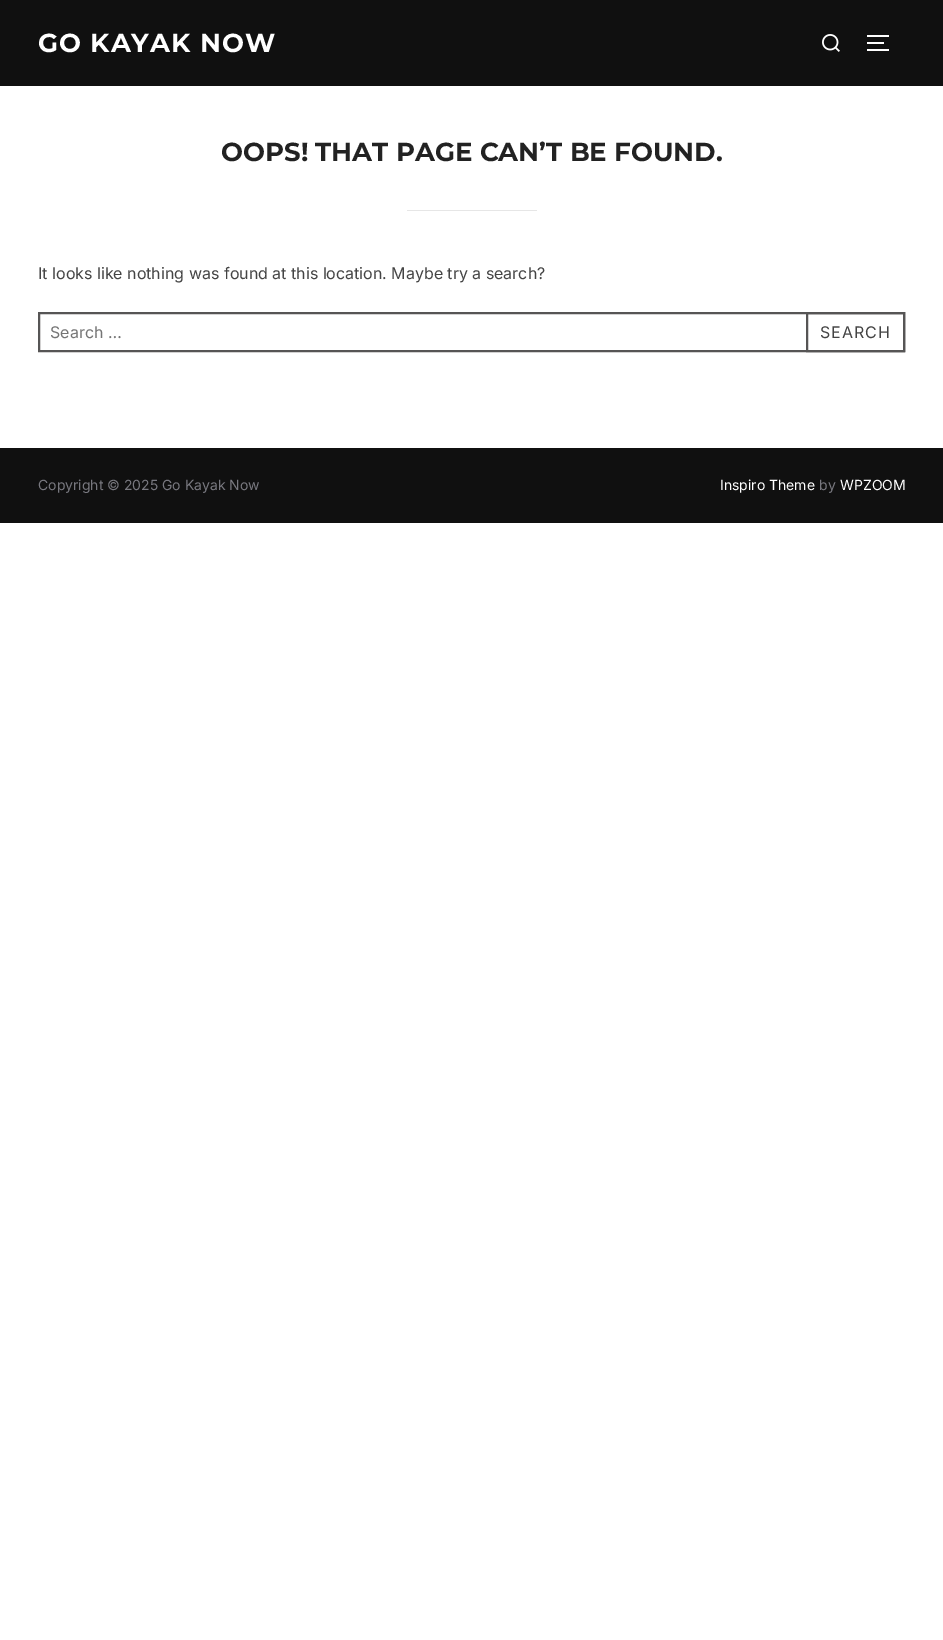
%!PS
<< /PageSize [943 1640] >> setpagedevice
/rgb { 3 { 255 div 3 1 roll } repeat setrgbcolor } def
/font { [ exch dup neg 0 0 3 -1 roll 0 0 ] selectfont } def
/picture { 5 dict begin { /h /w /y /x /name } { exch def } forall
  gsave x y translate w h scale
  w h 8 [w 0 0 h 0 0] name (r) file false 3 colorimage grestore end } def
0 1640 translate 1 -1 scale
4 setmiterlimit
255 255 255 rgb
0 0 943 1640 rectfill
16 16 16 rgb
0 0 943 86 rectfill
(img/1.rgb) 822 34 18 18 picture
[
  [867 35 22 2 255 255 255]
  [867 42 17 2 255 255 255]
  [867 49 22 2 255 255 255]
  [407 210 130 1 230 230 230]
] { aload pop rgb rectfill } forall
86 85 85 rgb
2 setlinewidth
39 313 865 38 rectstroke
807 313 97 38 rectstroke
16 16 16 rgb
0 448 943 75 rectfill
/Montserrat-Bold 26 font
255 255 255 rgb
38 52 moveto 1 0 (GO KAYAK NOW) ashow
34 34 34 rgb
221 161 moveto (OOPS! THAT PAGE CAN’T BE FOUND.) show
/Inter-Regular 16 font
68 68 68 rgb
38 279 moveto (It looks like nothing was found at this location. Maybe try a search?) show
117 117 117 rgb
50 338 moveto (Search …) show
68 68 68 rgb
820 338 moveto 1 0 (SEARCH) ashow
/Inter-Regular 14 font
120 120 127 rgb
38 490 moveto (Copyright © 2025 Go Kayak Now) show
255 255 255 rgb
720 490 moveto (Inspiro Theme) show
120 120 127 rgb
819 490 moveto (by) show
255 255 255 rgb
840 490 moveto (WPZOOM) show
showpage
